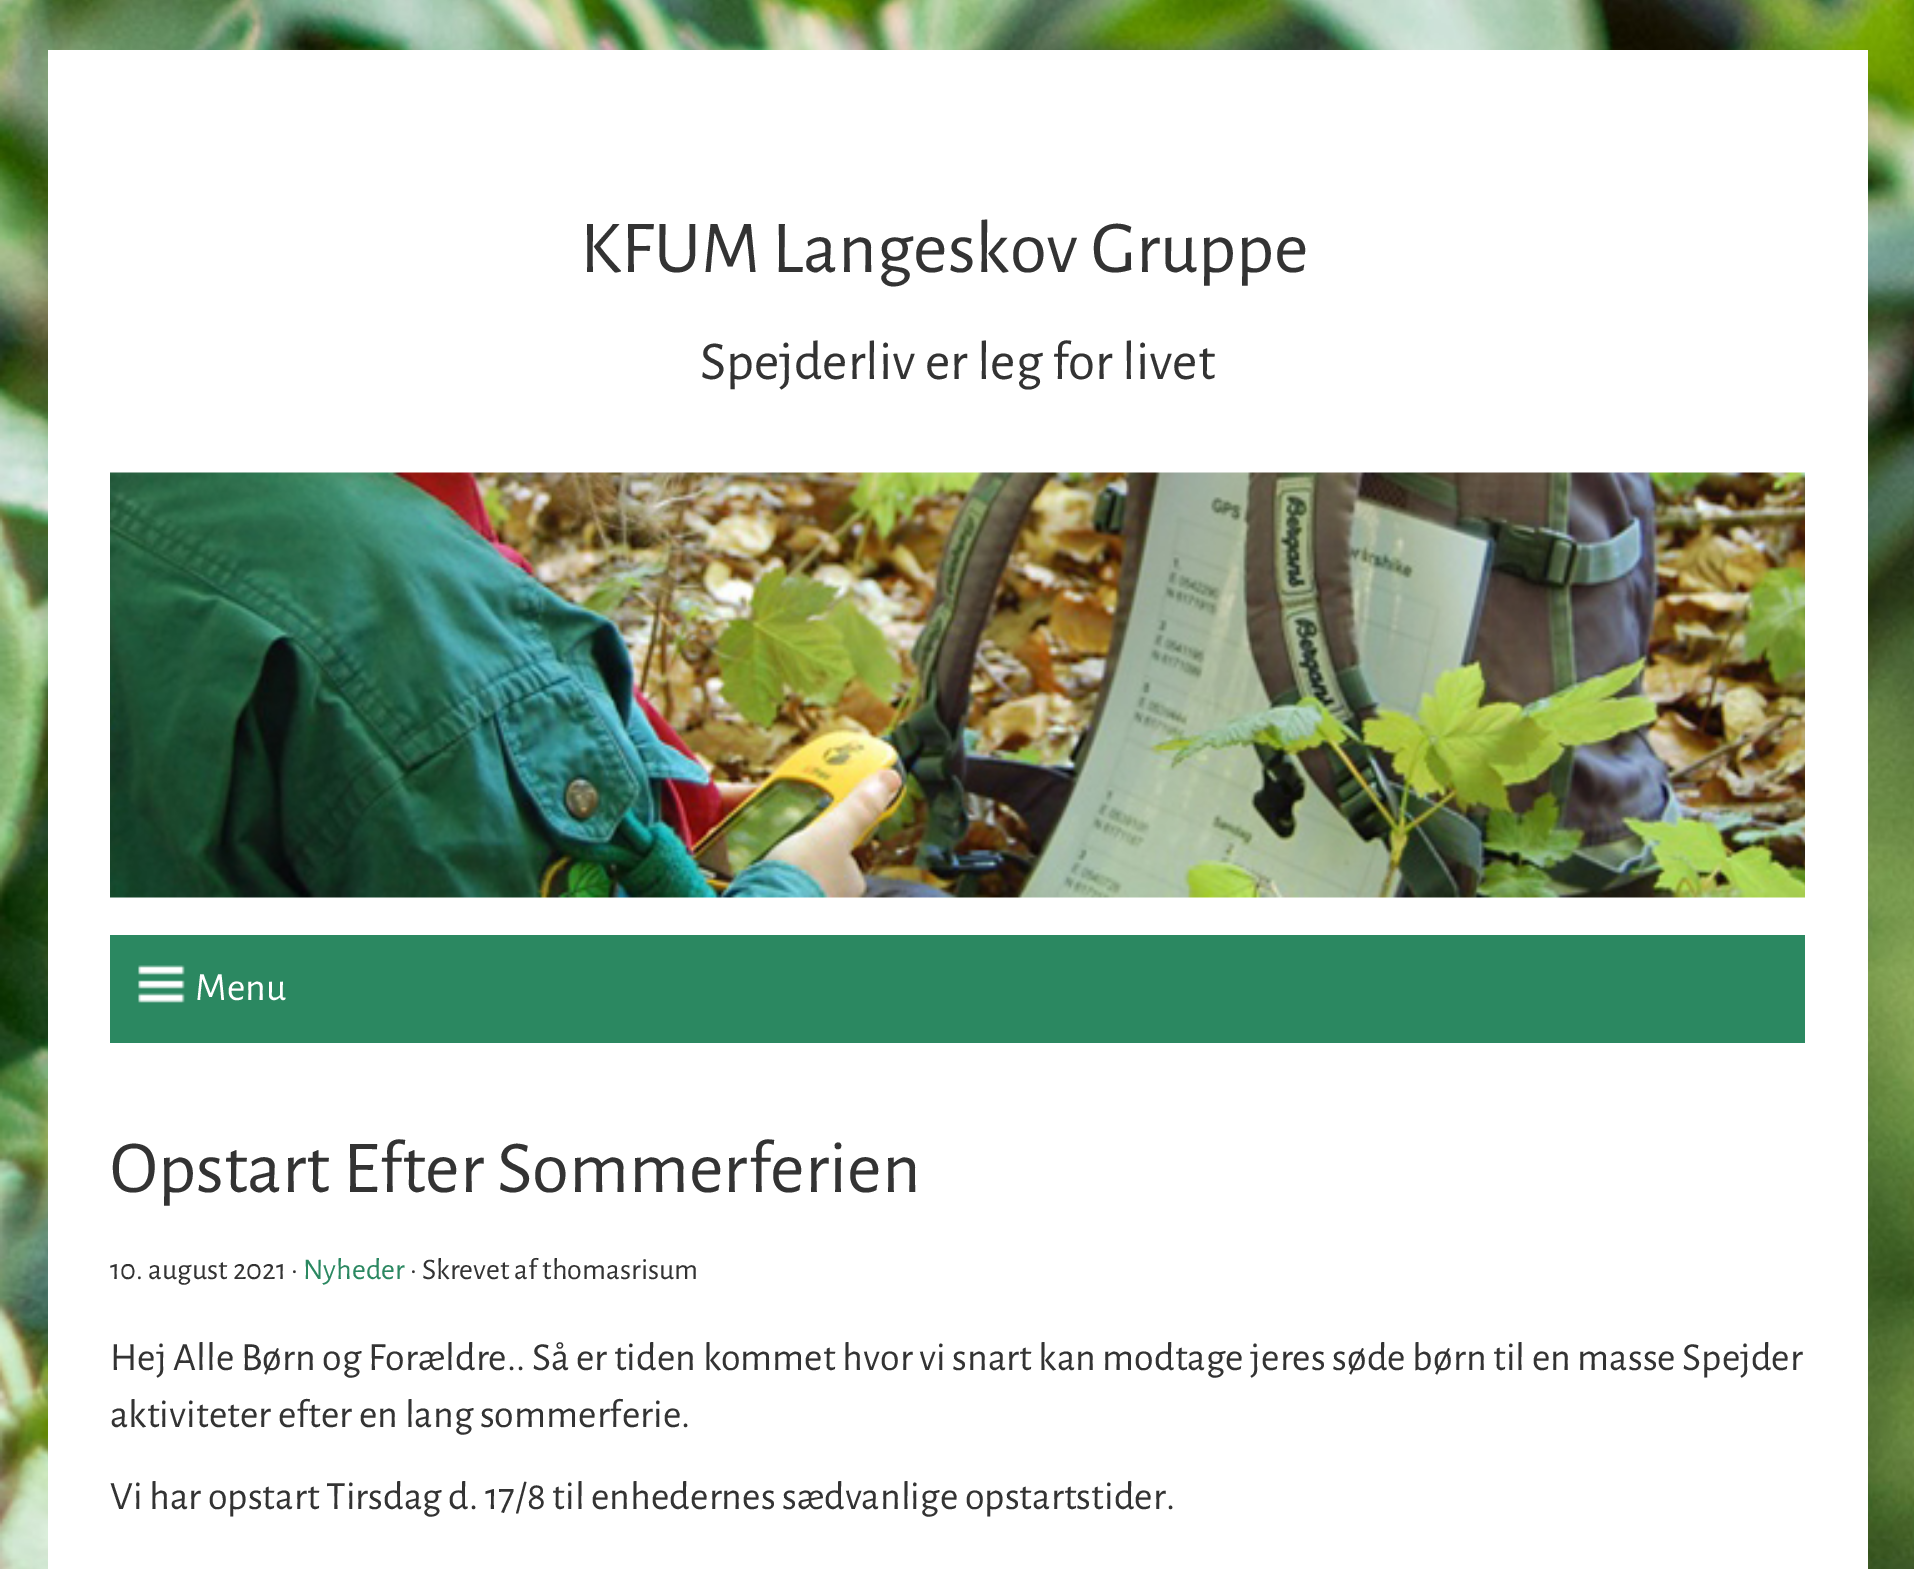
%!PS
<< /PageSize [1914 1569] >> setpagedevice
/rgb { 3 { 255 div 3 1 roll } repeat setrgbcolor } def
/font { [ exch dup neg 0 0 3 -1 roll 0 0 ] selectfont } def
/picture { 5 dict begin { /h /w /y /x /name } { exch def } forall
  gsave x y translate w h scale
  w h 8 [w 0 0 h 0 0] name (r) file false 3 colorimage grestore end } def
0 1569 translate 1 -1 scale
4 setmiterlimit
255 255 255 rgb
0 0 1914 1569 rectfill
(img/1.rgb) 0 0 1914 1569 picture
48 50 1820 1519 rectfill
(img/2.rgb) 110 472 1695 426 picture
43 136 97 rgb
110 935 1695 108 rectfill
(img/3.rgb) 138 965 47 38 picture
/AlegreyaSans-Regular 75 font
51 51 51 rgb
580 272 moveto (KFUM Langeskov Gruppe) show
/AlegreyaSans-Regular 55 font
700 379 moveto (Spejderliv er leg for livet) show
/AlegreyaSans-Regular 40 font
255 255 255 rgb
195 1000 moveto (Menu) show
/AlegreyaSans-Regular 75 font
51 51 51 rgb
110 1192 moveto (Opstart Efter Sommerferien) show
/AlegreyaSans-Regular 30 font
110 1279 moveto (10. august 2021 ·) show
43 136 97 rgb
303 1279 moveto (Nyheder) show
51 51 51 rgb
410 1279 moveto (· Skrevet af thomasrisum) show
/AlegreyaSans-Regular 40 font
[
  [(Hej Alle Børn og Forældre.. Så er tiden kommet hvor vi snart kan modtage jeres søde børn til en masse Spejder) 110 1370]
  [(aktiviteter efter en lang sommerferie.) 110 1427]
  [(Vi har opstart Tirsdag d. 17/8 til enhedernes sædvanlige opstartstider.) 110 1509]
] { aload pop moveto show } forall
showpage
